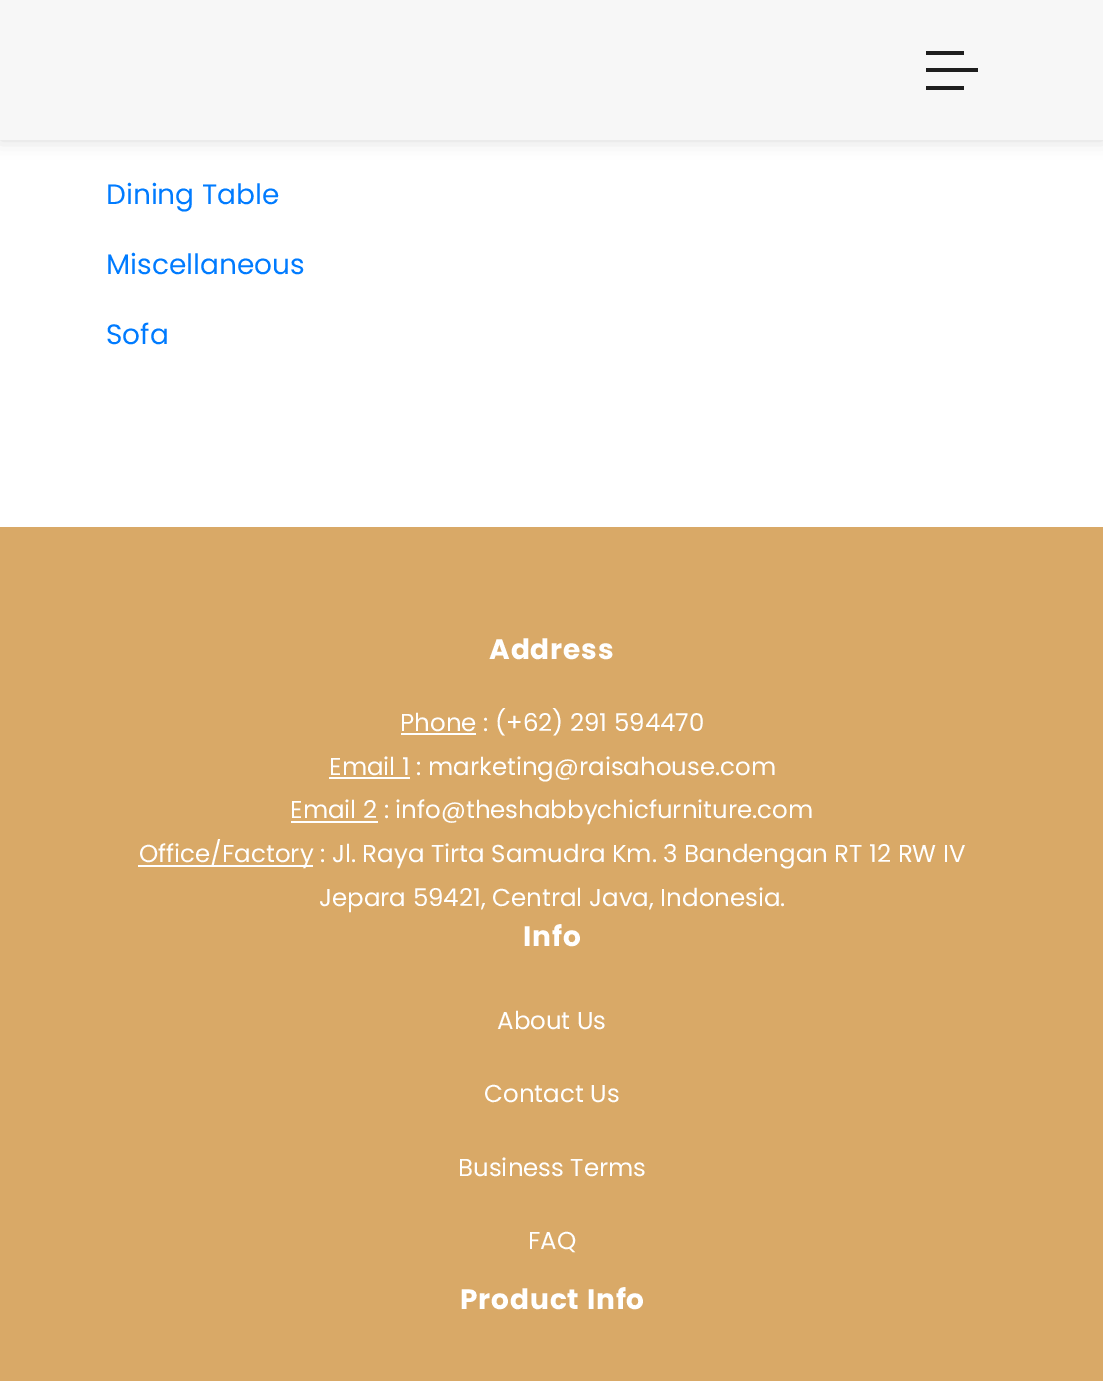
%!PS
<< /PageSize [1103 1381] /PageUsesTransparency true >> setpagedevice
/rgb { 3 { 255 div 3 1 roll } repeat setrgbcolor } def
/font { [ exch dup neg 0 0 3 -1 roll 0 0 ] selectfont } def
/alpha { dup .setfillconstantalpha .setstrokeconstantalpha } def
/roundrect { 5 dict begin { /r /h /w /y /x } { exch def } forall
  x r add y moveto x w add y 2 copy h add r arct x w add y h add x 1 index r arct
  x y h add x y r arct x y 2 copy exch w add exch r arct closepath end } def
/shadow { 12 dict begin { /a /b /q /h /w /y /x } { exch def } forall gsave /was 0 def
  9 -2 -9 { dup b mul 4 div /e exch def 1 sub .425 mul 2.718 exch exp 1 add a .99 .min exch div /now exch def
    1 1 now sub 1 was sub div sub alpha /was now def
    w h .min e 2 mul add 0 gt { x e sub y e sub w e 2 mul add h e 2 mul add
      q e add b .6 mul add w h .min 2 div e add .min 0 .max roundrect fill } if } for grestore end } def
0 .pushpdf14devicefilter
0 1381 translate 1 -1 scale
4 setmiterlimit
255 255 255 rgb
0 0 1103 1381 rectfill
0 0 0 rgb
0 0 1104 140 0 9 0.15 shadow
[
  [0 0 1103 140 247 247 247]
  [926 68 52 4 30 30 30]
  [926 51 38 4 30 30 30]
  [926 86 38 4 30 30 30]
  [0 527 1103 854 217 169 103]
  [401 733 75 2 255 255 255]
  [329 777 81 2 255 255 255]
  [291 821 87 2 255 255 255]
  [138 865 175 2 255 255 255]
] { aload pop rgb rectfill } forall
/Poppins-Regular 28 font
0 123 255 rgb
[
  [(Dining Table) 106 204]
  [(Miscellaneous) 106 274]
  [(Sofa) 106 344]
] { aload pop moveto show } forall
/Poppins-Bold 28 font
255 255 255 rgb
489 659 moveto 0.9 0 (Address) ashow
/Poppins-Regular 24.5 font
[
  [(Phone : \(+62\) 291 594470) 400 731]
  [(Email 1 : marketing@raisahouse.com) 329 775]
  [(Email 2 : info@theshabbychicfurniture.com) 290 818]
  [(Office/Factory : Jl. Raya Tirta Samudra Km. 3 Bandengan RT 12 RW IV) 139 862]
  [(Jepara 59421, Central Java, Indonesia.) 319 906]
] { aload pop moveto show } forall
/Poppins-Bold 28 font
523 946 moveto 0.9 0 (Info) ashow
/Poppins-Regular 24.5 font
[
  [(About Us) 497 1029]
  [(Contact Us) 484 1102]
  [(Business Terms) 458 1176]
  [(FAQ) 528 1249]
] { aload pop moveto show } forall
/Poppins-Bold 28 font
460 1309 moveto 0.9 0 (Product Info) ashow
.poppdf14devicefilter showpage
